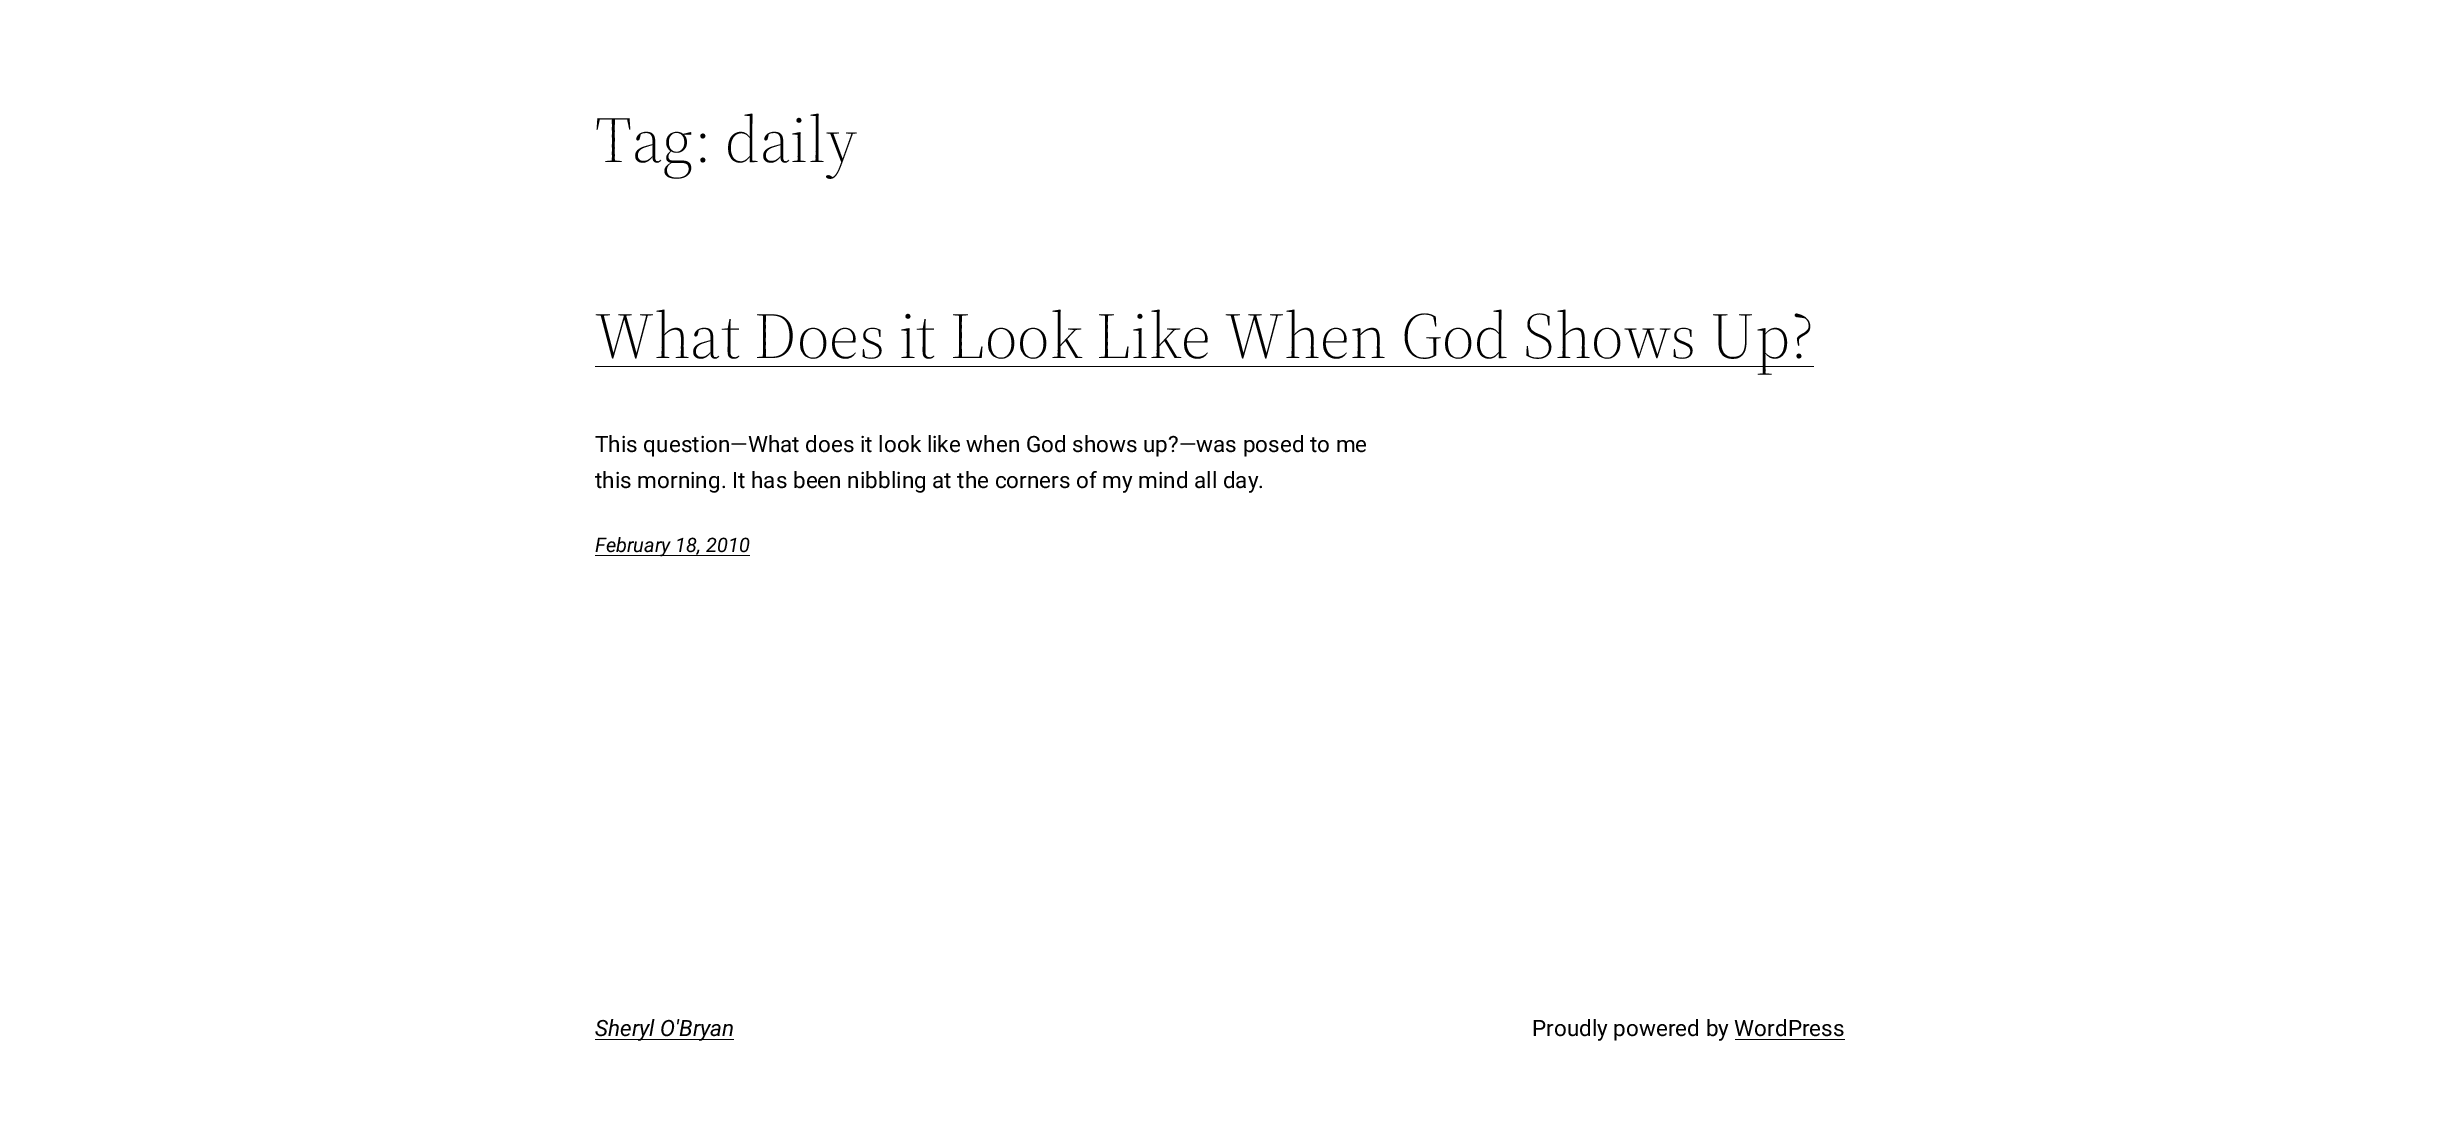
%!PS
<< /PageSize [2439 1126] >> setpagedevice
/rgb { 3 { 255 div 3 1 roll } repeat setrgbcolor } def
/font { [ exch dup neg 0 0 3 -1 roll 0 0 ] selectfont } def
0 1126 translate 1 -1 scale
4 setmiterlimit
255 255 255 rgb
0 0 2439 1126 rectfill
[
  [595 366 1219 1 0 0 0]
  [595 555 155 1 0 0 0]
  [595 1039 139 1 0 0 0]
  [1735 1039 110 1 0 0 0]
] { aload pop rgb rectfill } forall
/SourceSerif4-Light 65 font
595 162 moveto (Tag: daily) show
595 358 moveto (What Does it Look Like When God Shows Up?) show
/Roboto-Regular 22.5 font
595 452 moveto (This question—What does it look like when God shows up?—was posed to me) show
595 488 moveto (this morning. It has been nibbling at the corners of my mind all day.) show
/Roboto-Italic 20 font
595 552 moveto (February 18, 2010) show
/Roboto-Italic 22.5 font
595 1036 moveto (Sheryl O'Bryan) show
/Roboto-Regular 22.5 font
1532 1036 moveto (Proudly powered by WordPress) show
showpage
